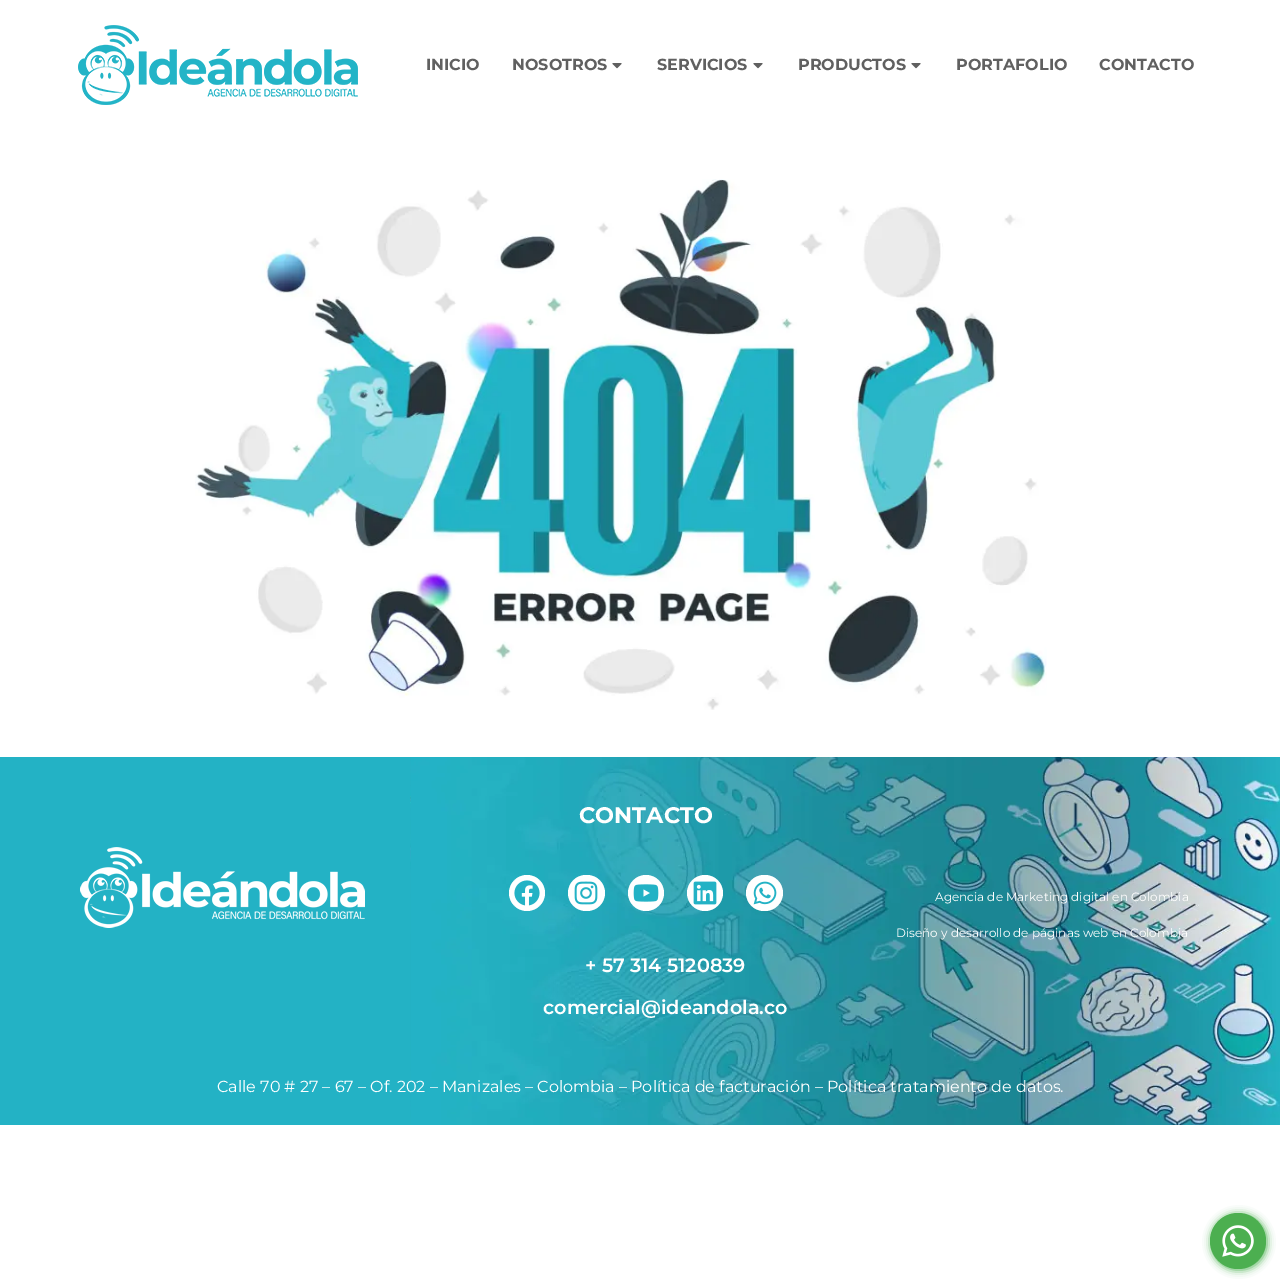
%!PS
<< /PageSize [1280 1284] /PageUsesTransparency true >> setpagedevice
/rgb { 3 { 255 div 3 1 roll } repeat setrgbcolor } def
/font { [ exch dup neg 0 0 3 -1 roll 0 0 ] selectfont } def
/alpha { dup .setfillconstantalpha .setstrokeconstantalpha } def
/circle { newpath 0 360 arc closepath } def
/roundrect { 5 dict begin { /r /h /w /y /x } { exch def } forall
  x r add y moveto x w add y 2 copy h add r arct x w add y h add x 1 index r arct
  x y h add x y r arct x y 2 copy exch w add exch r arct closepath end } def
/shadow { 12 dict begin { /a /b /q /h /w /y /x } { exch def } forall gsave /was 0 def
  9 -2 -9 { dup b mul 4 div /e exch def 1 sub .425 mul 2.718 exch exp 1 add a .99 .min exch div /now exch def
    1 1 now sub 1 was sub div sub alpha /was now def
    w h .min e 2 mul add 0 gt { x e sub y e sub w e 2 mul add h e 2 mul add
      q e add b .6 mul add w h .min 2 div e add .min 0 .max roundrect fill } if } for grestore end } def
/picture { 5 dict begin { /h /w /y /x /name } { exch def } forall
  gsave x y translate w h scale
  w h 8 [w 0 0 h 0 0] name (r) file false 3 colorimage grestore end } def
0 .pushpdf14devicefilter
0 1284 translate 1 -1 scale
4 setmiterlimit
255 255 255 rgb
0 0 1280 1284 rectfill
(img/1.rgb) 78 25 280 80 picture
(img/2.rgb) 612 63 10 6 picture
(img/2.rgb) 753 63 10 6 picture
(img/2.rgb) 911 63 10 6 picture
(img/3.rgb) 195 179 852 531 picture
35 178 197 rgb
0 757 410 368 rectfill
(img/4.rgb) 410 757 870 368 picture
(img/5.rgb) 80 847 285 81 picture
255 255 255 rgb
527 893 18 circle fill
(img/6.rgb) 514 880 26 26 picture
568 875 37 36 18 roundrect fill
(img/7.rgb) 574 881 24 24 picture
646 893 18 circle fill
(img/8.rgb) 633 884 26 18 picture
705 893 18 circle fill
(img/9.rgb) 693 881 24 24 picture
746 875 37 36 18 roundrect fill
(img/10.rgb) 753 881 24 24 picture
76 175 80 rgb
1211 1214 56 56 28 4 1 shadow
1238 1241 28 circle fill
(img/11.rgb) 1222 1225 32 32 picture
/Montserrat-Bold 16 font
96 96 96 rgb
[
  [(INICIO) 426 70]
  [(NOSOTROS) 512 70]
  [(SERVICIOS) 657 70]
  [(PRODUCTOS) 798 70]
  [(PORTAFOLIO) 956 70]
  [(CONTACTO) 1099 70]
] { aload pop moveto show } forall
/Montserrat-Bold 22.5 font
255 255 255 rgb
579 823 moveto (CONTACTO) show
/Montserrat-SemiBold 19.25 font
585 972 moveto (+ 57 314 5120839) show
543 1014 moveto (comercial@ideandola.co) show
/Montserrat-Regular 12 font
935 901 moveto (Agencia de Marketing digital en Colombia) show
896 937 moveto (Diseño y desarrollo de páginas web en Colombia) show
/Montserrat-Regular 16 font
217 1092 moveto (Calle 70 # 27 – 67 – Of. 202 – Manizales – Colombia – Política de facturación – Política tratamiento de datos.) show
.poppdf14devicefilter showpage
